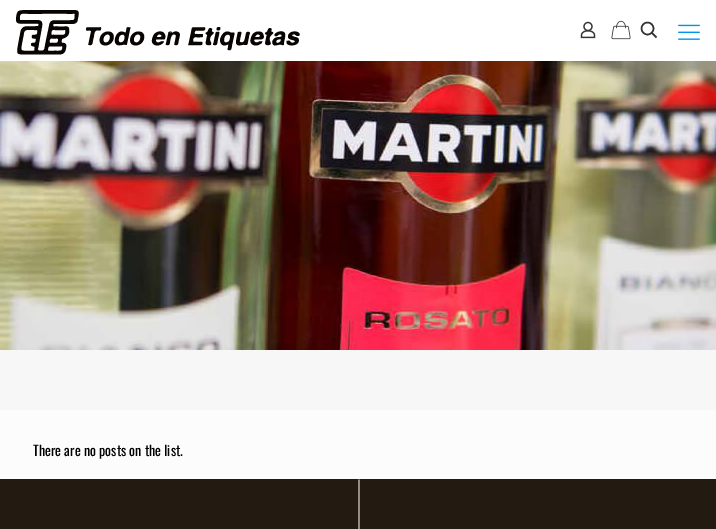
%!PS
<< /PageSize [716 529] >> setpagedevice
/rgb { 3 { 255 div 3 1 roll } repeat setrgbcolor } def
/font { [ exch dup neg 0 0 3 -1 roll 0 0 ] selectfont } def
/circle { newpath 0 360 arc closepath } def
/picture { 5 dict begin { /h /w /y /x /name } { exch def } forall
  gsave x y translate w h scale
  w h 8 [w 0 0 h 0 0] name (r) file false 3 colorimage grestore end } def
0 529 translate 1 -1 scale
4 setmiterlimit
252 252 252 rgb
0 0 716 529 rectfill
(img/1.rgb) 0 61 716 289 picture
255 255 255 rgb
0 0 716 61 rectfill
(img/2.rgb) 16 10 284 45 picture
(img/3.rgb) 678 24 22 16 picture
(img/4.rgb) 580 21 16 18 picture
(img/5.rgb) 611 20 20 20 picture
51 51 51 rgb
1.5 setlinewidth
647.5 28.5 6 circle stroke
651.5 32.5 moveto 656.5 37.5 lineto stroke
247 247 247 rgb
0 350 716 60 rectfill
35 27 18 rgb
0 479 716 50 rectfill
(img/6.rgb) 358 479 2 50 picture
/Oswald-Regular 14 font
0 0 0 rgb
33 456 moveto (There are no posts on the list.) show
showpage
